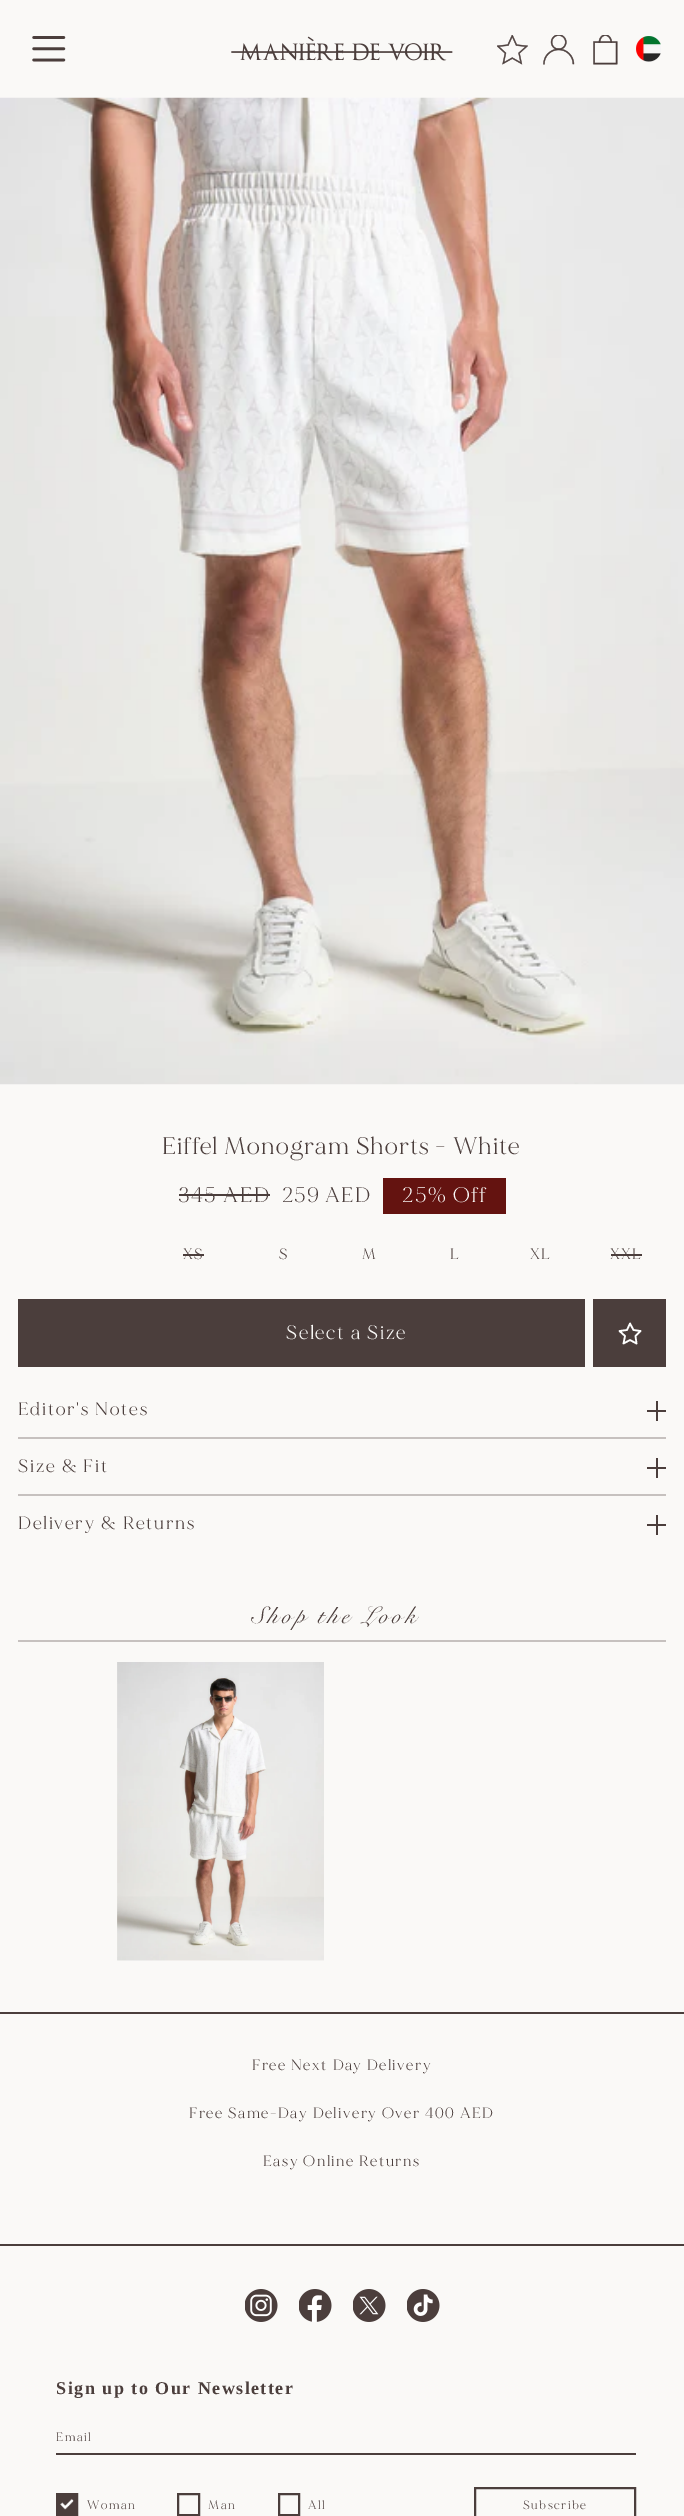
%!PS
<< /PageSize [684 2516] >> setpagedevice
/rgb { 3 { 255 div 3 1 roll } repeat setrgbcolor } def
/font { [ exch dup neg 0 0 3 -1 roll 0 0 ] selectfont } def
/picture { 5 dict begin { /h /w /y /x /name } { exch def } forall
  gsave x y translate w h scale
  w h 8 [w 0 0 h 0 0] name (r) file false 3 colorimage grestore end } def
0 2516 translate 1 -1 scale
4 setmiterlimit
250 249 247 rgb
0 0 684 2516 rectfill
(img/1.rgb) 32 36 34 26 picture
(img/2.rgb) 231 36 222 25 picture
(img/3.rgb) 497 35 31 30 picture
(img/4.rgb) 543 35 32 30 picture
(img/5.rgb) 593 35 25 30 picture
(img/6.rgb) 636 36 25 26 picture
(img/7.rgb) 0 97 684 988 picture
[
  [179 1194 91 2 75 62 60]
  [383 1178 123 36 100 19 16]
  [183 1254 21 2 75 62 60]
  [611 1254 31 2 75 62 60]
  [18 1299 567 68 75 62 60]
  [593 1299 73 68 75 62 60]
] { aload pop rgb rectfill } forall
255 255 255 rgb
1.6 setlinewidth
1 setlinecap
1 setlinejoin
630 1323.5 moveto 633.5 1330 lineto 640.5 1331 lineto 635.5 1336 lineto 636.5 1343.5 lineto 630 1340 lineto 623.5 1343.5 lineto 625 1336 lineto 619.5 1331 lineto 627 1330 lineto closepath stroke
[
  [18 1437 648 2 198 193 191]
  [656 1401 2 20 75 62 60]
  [647 1410 19 2 75 62 60]
  [18 1494 648 2 198 193 191]
  [656 1458 2 20 75 62 60]
  [647 1467 19 2 75 62 60]
  [656 1515 2 20 75 62 60]
  [647 1524 19 2 75 62 60]
  [18 1640 648 2 198 193 191]
] { aload pop rgb rectfill } forall
(img/8.rgb) 117 1662 207 299 picture
75 62 60 rgb
0 2012 684 2 rectfill
0 2244 684 2 rectfill
(img/9.rgb) 245 2289 33 33 picture
(img/10.rgb) 299 2289 33 33 picture
(img/11.rgb) 353 2289 33 33 picture
(img/12.rgb) 407 2289 33 33 picture
56 2453 580 2 rectfill
(img/13.rgb) 58 2495 18 19 picture
2 setlinewidth
0 setlinecap
0 setlinejoin
57 2494 20 21 rectstroke
178 2494 21 21 rectstroke
279 2494 20 21 rectstroke
475 2488 160 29 rectstroke
/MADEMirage-Regular 24 font
162 1154 moveto 1.05 0 (Eiffel Monogram Shorts - White) ashow
/MADEMirage-Regular 21 font
178 1202 moveto 1.5 0 (345 AED) ashow
282 1202 moveto 1.05 0 (259 AED) ashow
250 249 247 rgb
402 1202 moveto 1.5 0 (25% Off) ashow
/MADEMirage-Regular 15 font
75 62 60 rgb
183 1259 moveto 1.05 0 (XS) ashow
279 1259 moveto 1.05 0 (S) ashow
362 1259 moveto 1.05 0 (M) ashow
450 1259 moveto 1.05 0 (L) ashow
530 1259 moveto 1.05 0 (XL) ashow
610 1259 moveto 1.05 0 (XXL) ashow
/MADEMirage-Regular 19.5 font
250 249 247 rgb
286 1339 moveto 1.6 0 (Select a Size) ashow
/MADEMirage-Regular 18 font
75 62 60 rgb
18 1415 moveto 1.75 0 (Editor's Notes) ashow
18 1472 moveto 1.75 0 (Size & Fit) ashow
18 1529 moveto 1.75 0 (Delivery & Returns) ashow
/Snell-Italic 24 font
258 1623 moveto 3.1 0 (Shop the Look) ashow
/MADEMirage-Regular 15 font
252 2070 moveto 1.5 0 (Free Next Day Delivery) ashow
189 2118 moveto 1.5 0 (Free Same-Day Delivery Over 400 AED) ashow
263 2166 moveto 1.5 0 (Easy Online Returns) ashow
/LiberationSerif-Bold 18 font
56 2394 moveto 1.5 0 (Sign up to Our Newsletter) ashow
/MADEMirage-Regular 12 font
56 2441 moveto 1.5 0 (Email) ashow
87 2509 moveto 1.5 0 (Woman) ashow
208 2509 moveto 1.5 0 (Man) ashow
308 2509 moveto 1.5 0 (All) ashow
523 2509 moveto 1.5 0 (Subscribe) ashow
showpage
